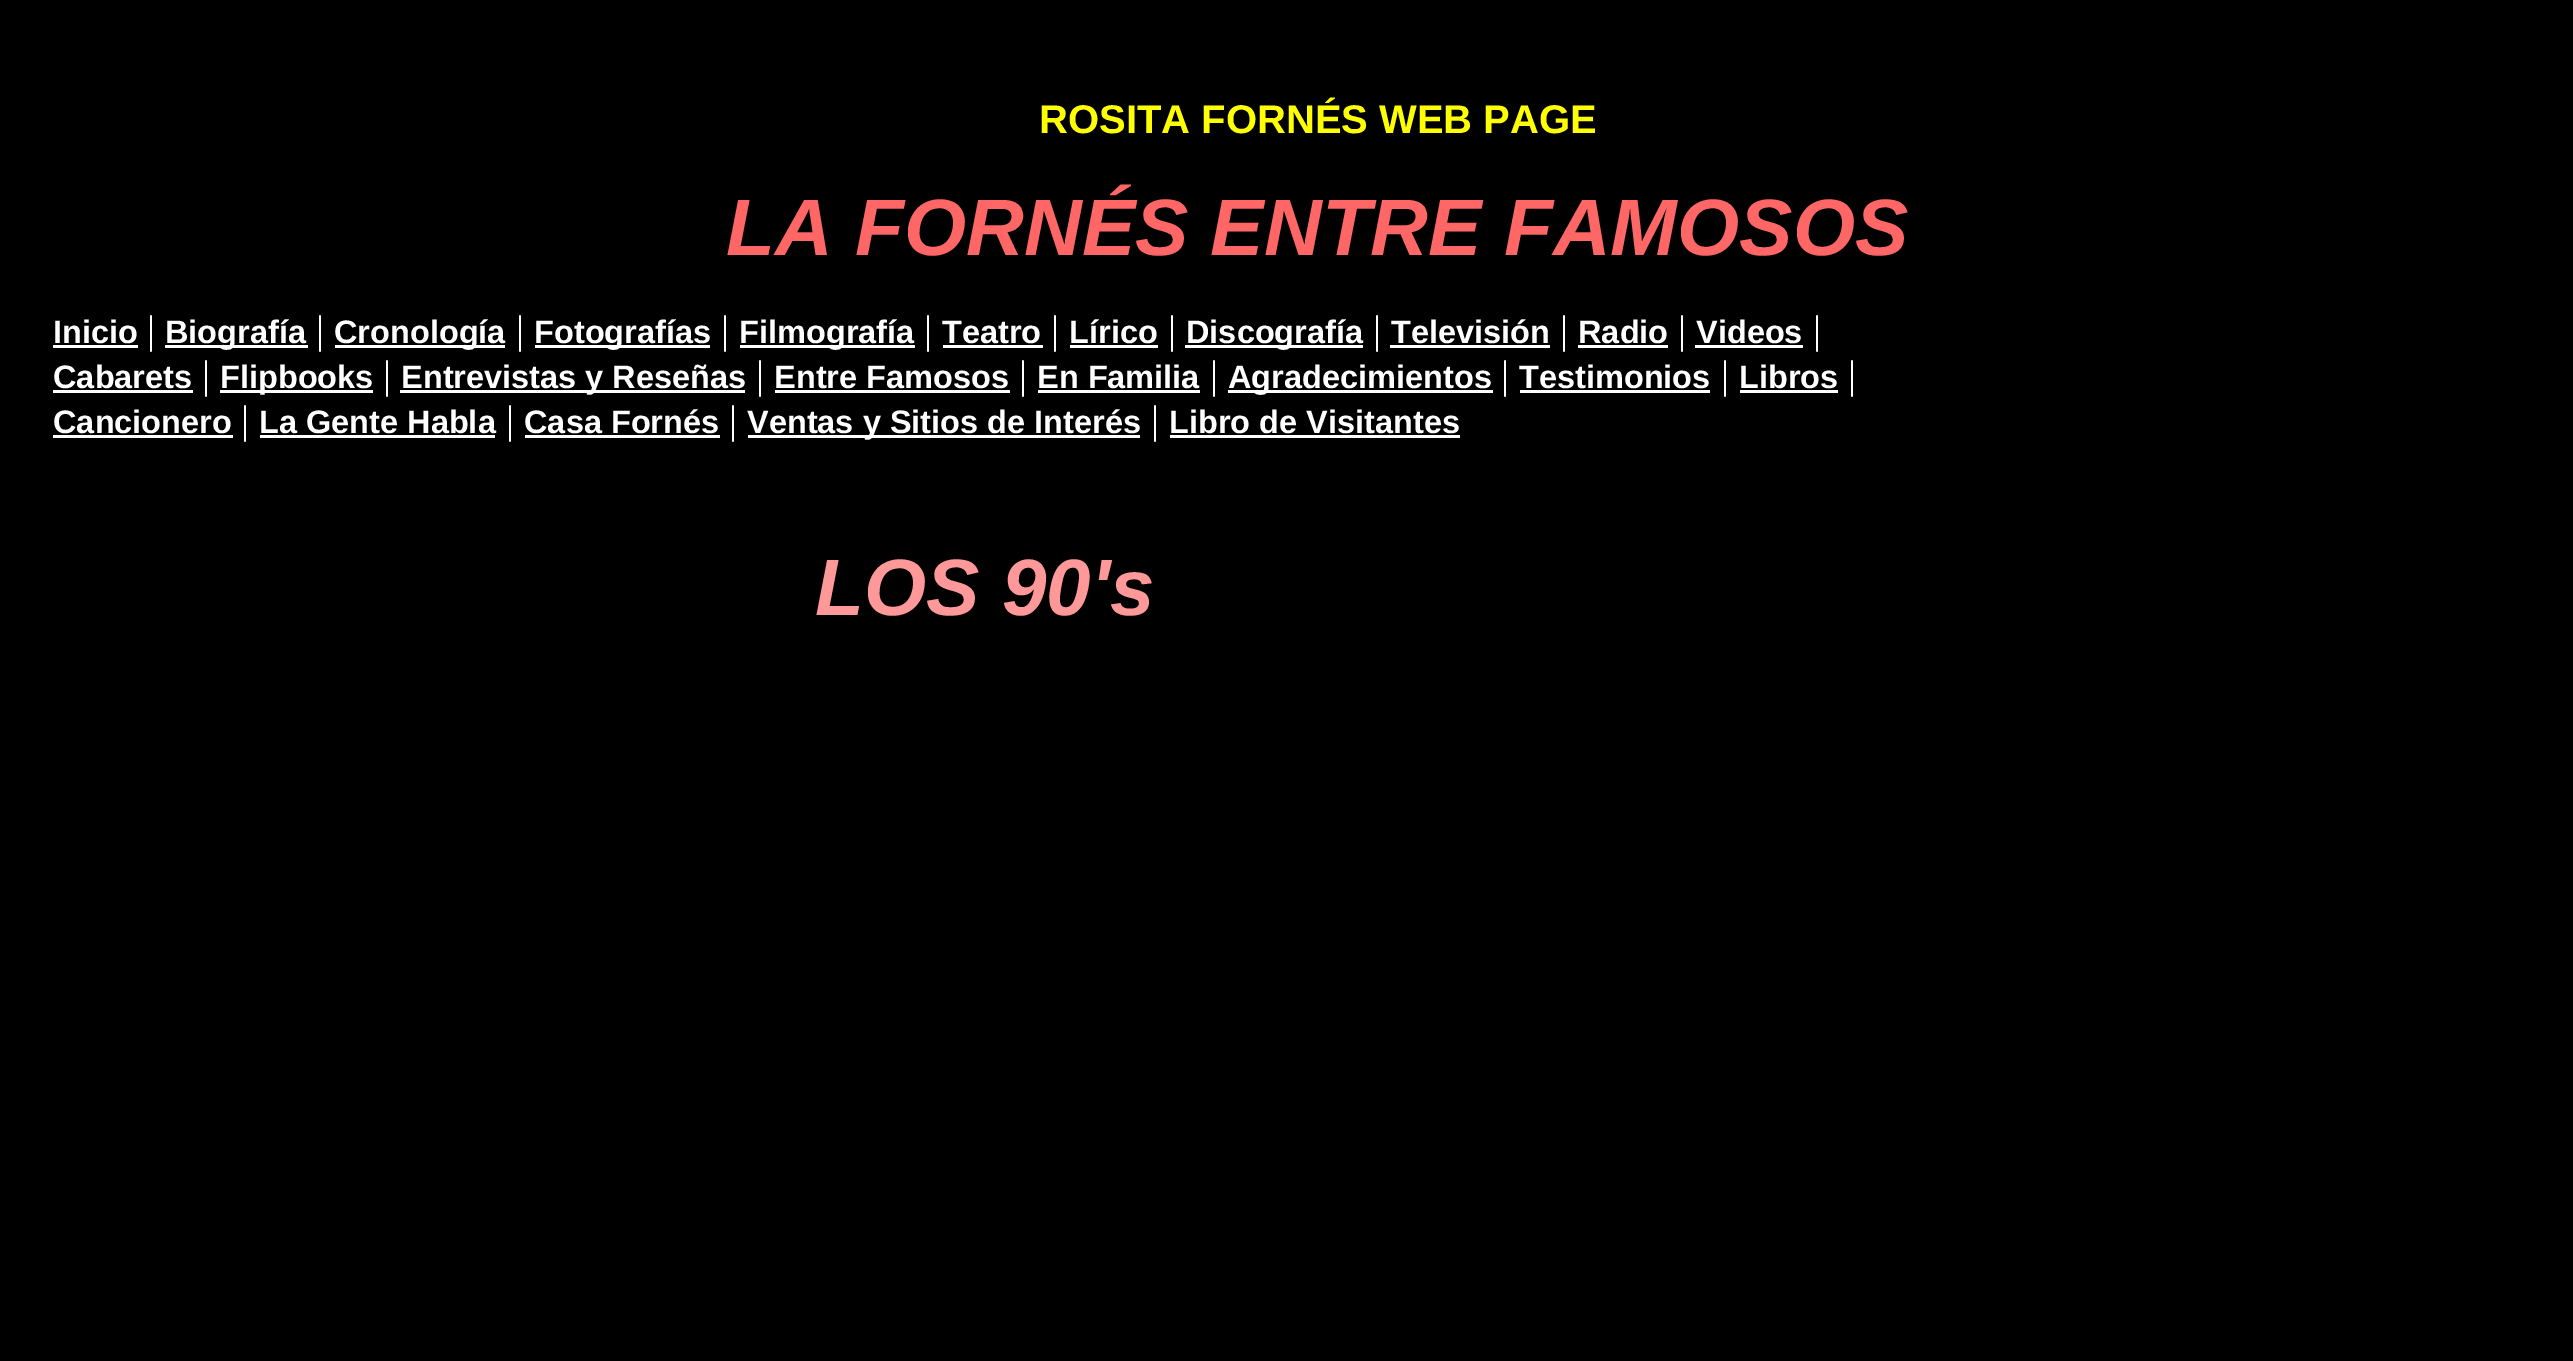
%!PS
<< /PageSize [2573 1361] >> setpagedevice
/rgb { 3 { 255 div 3 1 roll } repeat setrgbcolor } def
/font { [ exch dup neg 0 0 3 -1 roll 0 0 ] selectfont } def
0 1361 translate 1 -1 scale
4 setmiterlimit
0 0 0 rgb
0 0 2573 1361 rectfill
[
  [53 345 85 3 255 255 255]
  [165 345 143 3 255 255 255]
  [335 345 170 3 255 255 255]
  [535 345 175 3 255 255 255]
  [740 345 175 3 255 255 255]
  [943 345 100 3 255 255 255]
  [1070 345 88 3 255 255 255]
  [1185 345 178 3 255 255 255]
  [1390 345 160 3 255 255 255]
  [1578 345 90 3 255 255 255]
  [1695 345 108 3 255 255 255]
  [53 390 140 3 255 255 255]
  [220 390 153 3 255 255 255]
  [400 390 345 3 255 255 255]
  [775 390 235 3 255 255 255]
  [1038 390 162 3 255 255 255]
  [1228 390 265 3 255 255 255]
  [1520 390 190 3 255 255 255]
  [1740 390 98 3 255 255 255]
  [53 435 180 3 255 255 255]
  [260 435 235 3 255 255 255]
  [525 435 195 3 255 255 255]
  [748 435 392 3 255 255 255]
  [1170 435 290 3 255 255 255]
] { aload pop rgb rectfill } forall
/LiberationSans-Bold 40 font
255 255 0 rgb
1039 133 moveto (ROSITA FORNÉS WEB PAGE) show
/LiberationSans-BoldItalic 80 font
255 102 102 rgb
726 255 moveto (LA FORNÉS ENTRE FAMOSOS) show
/LiberationSans-Bold 32.5 font
255 255 255 rgb
53 343 moveto (Inicio) show
/LiberationSerif-Regular 40 font
147 343 moveto (|) show
/LiberationSans-Bold 32.5 font
165 343 moveto (Biografía) show
/LiberationSerif-Regular 40 font
316 343 moveto (|) show
/LiberationSans-Bold 32.5 font
334 343 moveto (Cronología) show
/LiberationSerif-Regular 40 font
516 343 moveto (|) show
/LiberationSans-Bold 32.5 font
534 343 moveto (Fotografías) show
/LiberationSerif-Regular 40 font
721 343 moveto (|) show
/LiberationSans-Bold 32.5 font
739 343 moveto (Filmografía) show
/LiberationSerif-Regular 40 font
924 343 moveto (|) show
/LiberationSans-Bold 32.5 font
942 343 moveto (Teatro) show
/LiberationSerif-Regular 40 font
1051 343 moveto (|) show
/LiberationSans-Bold 32.5 font
1069 343 moveto (Lírico) show
/LiberationSerif-Regular 40 font
1168 343 moveto (|) show
/LiberationSans-Bold 32.5 font
1186 343 moveto (Discografía) show
/LiberationSerif-Regular 40 font
1373 343 moveto (|) show
/LiberationSans-Bold 32.5 font
1391 343 moveto (Televisión) show
/LiberationSerif-Regular 40 font
1560 343 moveto (|) show
/LiberationSans-Bold 32.5 font
1578 343 moveto (Radio) show
/LiberationSerif-Regular 40 font
1678 343 moveto (|) show
/LiberationSans-Bold 32.5 font
1696 343 moveto (Videos) show
/LiberationSerif-Regular 40 font
1813 343 moveto (|) show
/LiberationSans-Bold 32.5 font
53 388 moveto (Cabarets) show
/LiberationSerif-Regular 40 font
202 388 moveto (|) show
/LiberationSans-Bold 32.5 font
220 388 moveto (Flipbooks) show
/LiberationSerif-Regular 40 font
383 388 moveto (|) show
/LiberationSans-Bold 32.5 font
401 388 moveto (Entrevistas y Reseñas) show
/LiberationSerif-Regular 40 font
756 388 moveto (|) show
/LiberationSans-Bold 32.5 font
774 388 moveto (Entre Famosos) show
/LiberationSerif-Regular 40 font
1019 388 moveto (|) show
/LiberationSans-Bold 32.5 font
1037 388 moveto (En Familia) show
/LiberationSerif-Regular 40 font
1210 388 moveto (|) show
/LiberationSans-Bold 32.5 font
1228 388 moveto (Agradecimientos) show
/LiberationSerif-Regular 40 font
1501 388 moveto (|) show
/LiberationSans-Bold 32.5 font
1519 388 moveto (Testimonios) show
/LiberationSerif-Regular 40 font
1721 388 moveto (|) show
/LiberationSans-Bold 32.5 font
1739 388 moveto (Libros) show
/LiberationSerif-Regular 40 font
1848 388 moveto (|) show
/LiberationSans-Bold 32.5 font
53 433 moveto (Cancionero) show
/LiberationSerif-Regular 40 font
241 433 moveto (|) show
/LiberationSans-Bold 32.5 font
259 433 moveto (La Gente Habla) show
/LiberationSerif-Regular 40 font
506 433 moveto (|) show
/LiberationSans-Bold 32.5 font
524 433 moveto (Casa Fornés) show
/LiberationSerif-Regular 40 font
729 433 moveto (|) show
/LiberationSans-Bold 32.5 font
747 433 moveto (Ventas y Sitios de Interés) show
/LiberationSerif-Regular 40 font
1151 433 moveto (|) show
/LiberationSans-Bold 32.5 font
1169 433 moveto (Libro de Visitantes) show
/LiberationSans-BoldItalic 80 font
255 153 153 rgb
815 615 moveto (LOS 90's) show
showpage
